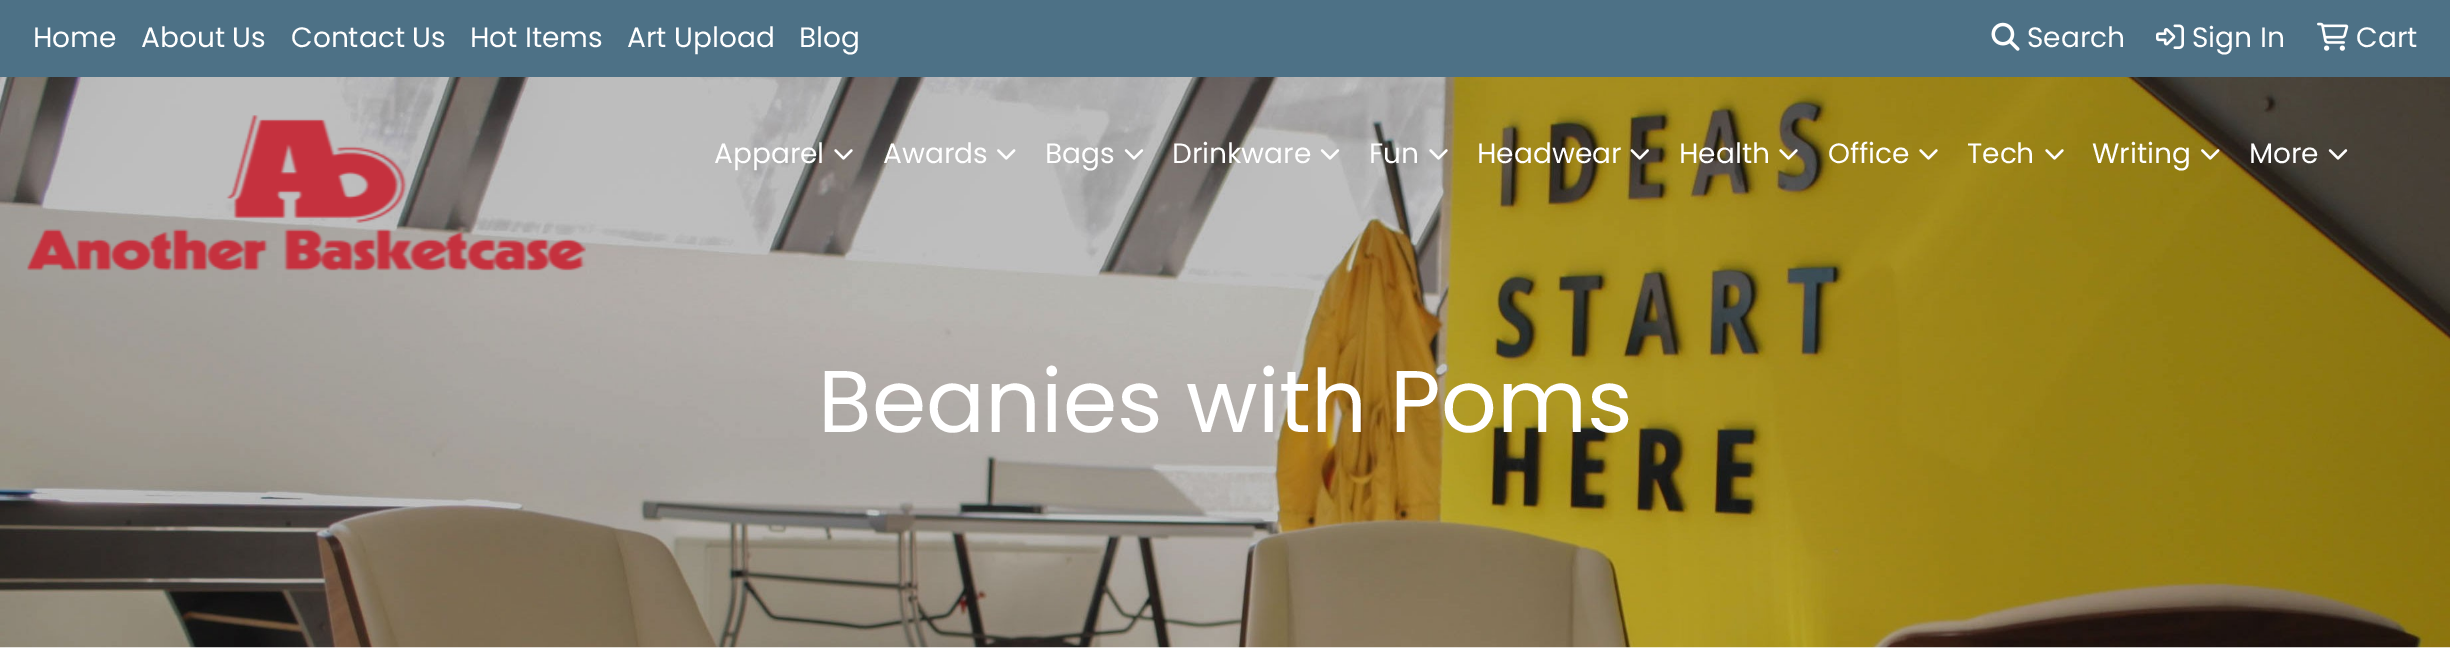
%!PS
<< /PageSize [2450 668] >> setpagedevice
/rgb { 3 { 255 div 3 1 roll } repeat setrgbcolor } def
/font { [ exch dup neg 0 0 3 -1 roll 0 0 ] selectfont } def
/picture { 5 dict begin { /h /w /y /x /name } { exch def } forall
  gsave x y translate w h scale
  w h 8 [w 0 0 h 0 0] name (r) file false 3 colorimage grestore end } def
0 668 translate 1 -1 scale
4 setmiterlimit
255 255 255 rgb
0 0 2450 668 rectfill
77 113 134 rgb
0 0 2450 77 rectfill
(img/1.rgb) 1991 22 29 29 picture
(img/2.rgb) 2156 24 28 25 picture
(img/3.rgb) 2317 22 32 29 picture
(img/16.rgb) 0 77 2450 571 picture
(img/4.rgb) 27 115 559 156 picture
(img/5.rgb) 834 149 19 11 picture
(img/6.rgb) 997 149 19 11 picture
(img/7.rgb) 1124 149 20 11 picture
(img/8.rgb) 1320 149 20 11 picture
(img/9.rgb) 1429 149 19 11 picture
(img/10.rgb) 1630 149 19 11 picture
(img/11.rgb) 1779 149 19 11 picture
(img/12.rgb) 1919 149 19 11 picture
(img/13.rgb) 2045 149 19 11 picture
(img/14.rgb) 2201 149 19 11 picture
(img/15.rgb) 2328 149 20 11 picture
/Poppins-Regular 28 font
255 255 255 rgb
[
  [(Home) 33 47]
  [(About Us) 141 47]
  [(Contact Us) 291 47]
  [(Hot Items) 470 47]
  [(Art Upload) 627 47]
  [(Blog) 799 47]
  [(Search) 2027 47]
  [(Sign In) 2192 47]
  [(Cart) 2356 47]
  [(Apparel) 714 163]
  [(Awards) 883 163]
  [(Bags) 1045 163]
  [(Drinkware) 1172 163]
  [(Fun) 1369 163]
  [(Headwear) 1477 163]
  [(Health) 1679 163]
  [(Office) 1828 163]
  [(Tech) 1967 163]
  [(Writing) 2092 163]
  [(More) 2249 163]
] { aload pop moveto show } forall
/Poppins-Regular 87.5 font
818 432 moveto (Beanies with Poms) show
showpage
